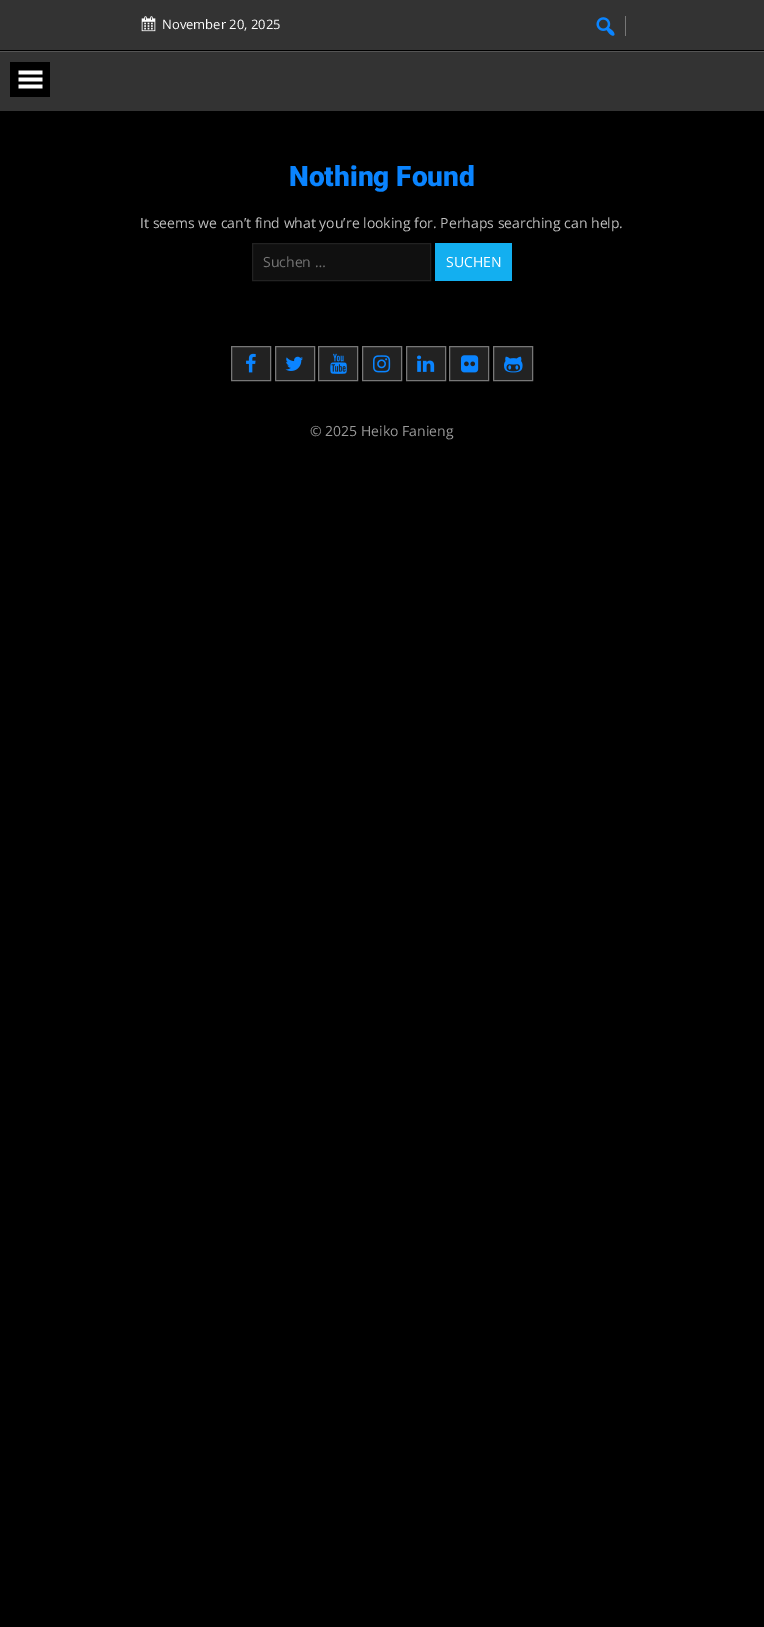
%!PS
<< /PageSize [764 1627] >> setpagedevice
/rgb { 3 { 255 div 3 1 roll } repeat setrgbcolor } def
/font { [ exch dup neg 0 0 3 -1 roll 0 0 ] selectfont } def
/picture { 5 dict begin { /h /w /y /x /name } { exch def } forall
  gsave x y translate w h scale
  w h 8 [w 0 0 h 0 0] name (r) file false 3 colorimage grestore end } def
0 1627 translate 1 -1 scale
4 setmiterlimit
0 0 0 rgb
0 0 764 1627 rectfill
51 51 51 rgb
0 0 764 50 rectfill
(img/1.rgb) 141 16 15 16 picture
119 119 119 rgb
625 16 1 20 rectfill
(img/2.rgb) 596 17 19 19 picture
51 51 51 rgb
0 52 764 59 rectfill
85 85 85 rgb
0 51 764 1 rectfill
(img/3.rgb) 10 62 40 35 picture
16 16 16 rgb
252.5 243.5 moveto 430.5 243.5 lineto 430.5 280.5 lineto 252.5 280.5 lineto closepath gsave fill grestore
34 34 34 rgb
stroke
19 175 240 rgb
435 243 77 38 rectfill
34 34 34 rgb
231.5 346.5 moveto 270.5 346.5 lineto 270.5 380.5 lineto 231.5 380.5 lineto closepath gsave fill grestore
119 119 119 rgb
stroke
(img/4.rgb) 246 353 10 20 picture
34 34 34 rgb
275.5 346.5 moveto 314.5 346.5 lineto 314.5 380.5 lineto 275.5 380.5 lineto closepath gsave fill grestore
119 119 119 rgb
stroke
(img/5.rgb) 285 356 18 15 picture
34 34 34 rgb
318.5 346.5 moveto 357.5 346.5 lineto 357.5 380.5 lineto 318.5 380.5 lineto closepath gsave fill grestore
119 119 119 rgb
stroke
(img/6.rgb) 330 353 17 21 picture
34 34 34 rgb
362.5 346.5 moveto 401.5 346.5 lineto 401.5 380.5 lineto 362.5 380.5 lineto closepath gsave fill grestore
119 119 119 rgb
stroke
(img/7.rgb) 373 355 18 18 picture
34 34 34 rgb
406.5 346.5 moveto 445.5 346.5 lineto 445.5 380.5 lineto 406.5 380.5 lineto closepath gsave fill grestore
119 119 119 rgb
stroke
(img/8.rgb) 417 355 18 17 picture
34 34 34 rgb
449.5 346.5 moveto 488.5 346.5 lineto 488.5 380.5 lineto 449.5 380.5 lineto closepath gsave fill grestore
119 119 119 rgb
stroke
(img/9.rgb) 461 355 18 18 picture
34 34 34 rgb
493.5 346.5 moveto 532.5 346.5 lineto 532.5 380.5 lineto 493.5 380.5 lineto closepath gsave fill grestore
119 119 119 rgb
stroke
(img/10.rgb) 504 356 19 17 picture
/OpenSans-Regular 13 font
255 255 255 rgb
162 29 moveto (November 20, 2025) show
/Roboto-Black 28 font
10 132 255 rgb
289 186 moveto (Nothing Found) show
/OpenSans-Regular 14 font
192 192 192 rgb
140 228 moveto (It seems we can’t find what you’re looking for. Perhaps searching can help.) show
117 117 117 rgb
263 267 moveto (Suchen …) show
255 255 255 rgb
446 267 moveto (SUCHEN) show
153 153 153 rgb
310 436 moveto (© 2025 Heiko Fanieng) show
showpage
